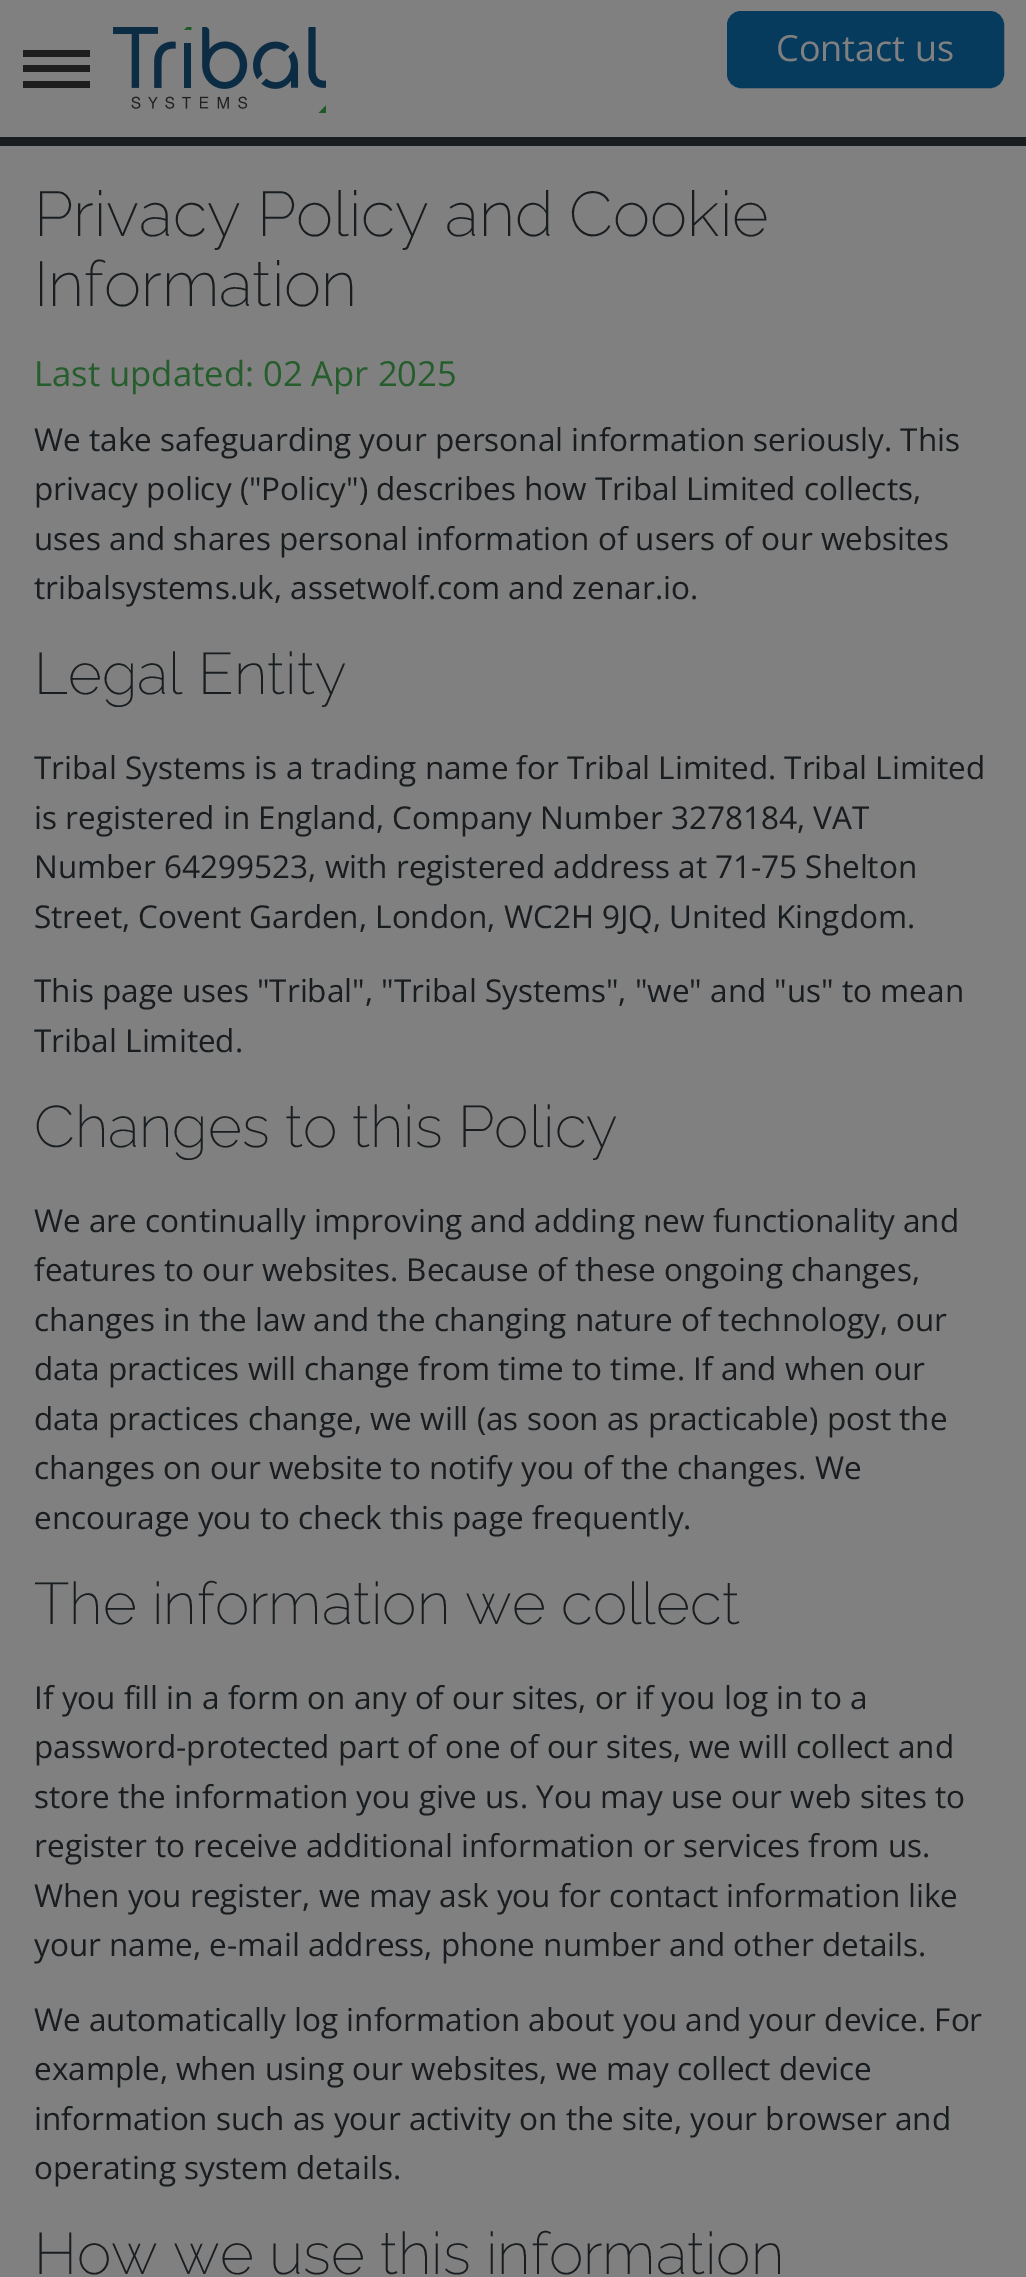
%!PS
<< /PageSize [1026 2277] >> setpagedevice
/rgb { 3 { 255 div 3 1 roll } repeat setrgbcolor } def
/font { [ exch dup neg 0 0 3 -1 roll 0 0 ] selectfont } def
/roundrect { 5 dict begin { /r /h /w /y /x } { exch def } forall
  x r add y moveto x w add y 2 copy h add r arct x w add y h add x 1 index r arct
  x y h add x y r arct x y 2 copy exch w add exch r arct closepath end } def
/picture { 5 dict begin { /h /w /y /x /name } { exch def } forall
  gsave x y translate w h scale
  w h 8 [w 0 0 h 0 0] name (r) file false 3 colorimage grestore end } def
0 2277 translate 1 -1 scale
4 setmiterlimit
128 128 128 rgb
0 0 1026 2277 rectfill
[
  [0 137 1026 9 25 29 32]
  [23 50 67 7 30 30 30]
  [23 65 67 7 30 30 30]
  [23 81 67 7 30 30 30]
] { aload pop rgb rectfill } forall
(img/1.rgb) 113 27 213 86 picture
7 59 94 rgb
729.5 13.5 272 72 11.5 roundrect gsave fill grestore
5 setlinewidth
stroke
/OpenSans-Regular 36 font
128 128 128 rgb
776 61 moveto (Contact us) show
/Raleway-ExtraLight 63 font
25 29 32 rgb
34 236 moveto (Privacy Policy and Cookie) show
34 306 moveto (Information) show
/OpenSans-Regular 34.6 font
38 93 44 rgb
34 386 moveto (Last updated: 02 Apr 2025) show
/OpenSans-Regular 31.5 font
25 29 32 rgb
[
  [(We take safeguarding your personal information seriously. This) 34 451]
  [(privacy policy \("Policy"\) describes how Tribal Limited collects,) 34 500]
  [(uses and shares personal information of users of our websites) 34 550]
  [(tribalsystems.uk, assetwolf.com and zenar.io.) 34 599]
] { aload pop moveto show } forall
/Raleway-ExtraLight 58.5 font
34 694 moveto (Legal Entity) show
/OpenSans-Regular 31.5 font
[
  [(Tribal Systems is a trading name for Tribal Limited. Tribal Limited) 34 779]
  [(is registered in England, Company Number 3278184, VAT) 34 829]
  [(Number 64299523, with registered address at 71-75 Shelton) 34 878]
  [(Street, Covent Garden, London, WC2H 9JQ, United Kingdom.) 34 928]
  [(This page uses "Tribal", "Tribal Systems", "we" and "us" to mean) 34 1002]
  [(Tribal Limited.) 34 1052]
] { aload pop moveto show } forall
/Raleway-ExtraLight 58.5 font
34 1147 moveto (Changes to this Policy) show
/OpenSans-Regular 31.5 font
[
  [(We are continually improving and adding new functionality and) 34 1232]
  [(features to our websites. Because of these ongoing changes,) 34 1281]
  [(changes in the law and the changing nature of technology, our) 34 1331]
  [(data practices will change from time to time. If and when our) 34 1380]
  [(data practices change, we will \(as soon as practicable\) post the) 34 1430]
  [(changes on our website to notify you of the changes. We) 34 1479]
  [(encourage you to check this page frequently.) 34 1529]
] { aload pop moveto show } forall
/Raleway-ExtraLight 58.5 font
34 1624 moveto (The information we collect) show
/OpenSans-Regular 31.5 font
[
  [(If you fill in a form on any of our sites, or if you log in to a) 34 1709]
  [(password-protected part of one of our sites, we will collect and) 34 1758]
  [(store the information you give us. You may use our web sites to) 34 1808]
  [(register to receive additional information or services from us.) 34 1857]
  [(When you register, we may ask you for contact information like) 34 1907]
  [(your name, e-mail address, phone number and other details.) 34 1956]
  [(We automatically log information about you and your device. For) 34 2031]
  [(example, when using our websites, we may collect device) 34 2080]
  [(information such as your activity on the site, your browser and) 34 2130]
  [(operating system details.) 34 2179]
] { aload pop moveto show } forall
/Raleway-ExtraLight 58.5 font
34 2274 moveto (How we use this information) show
showpage
